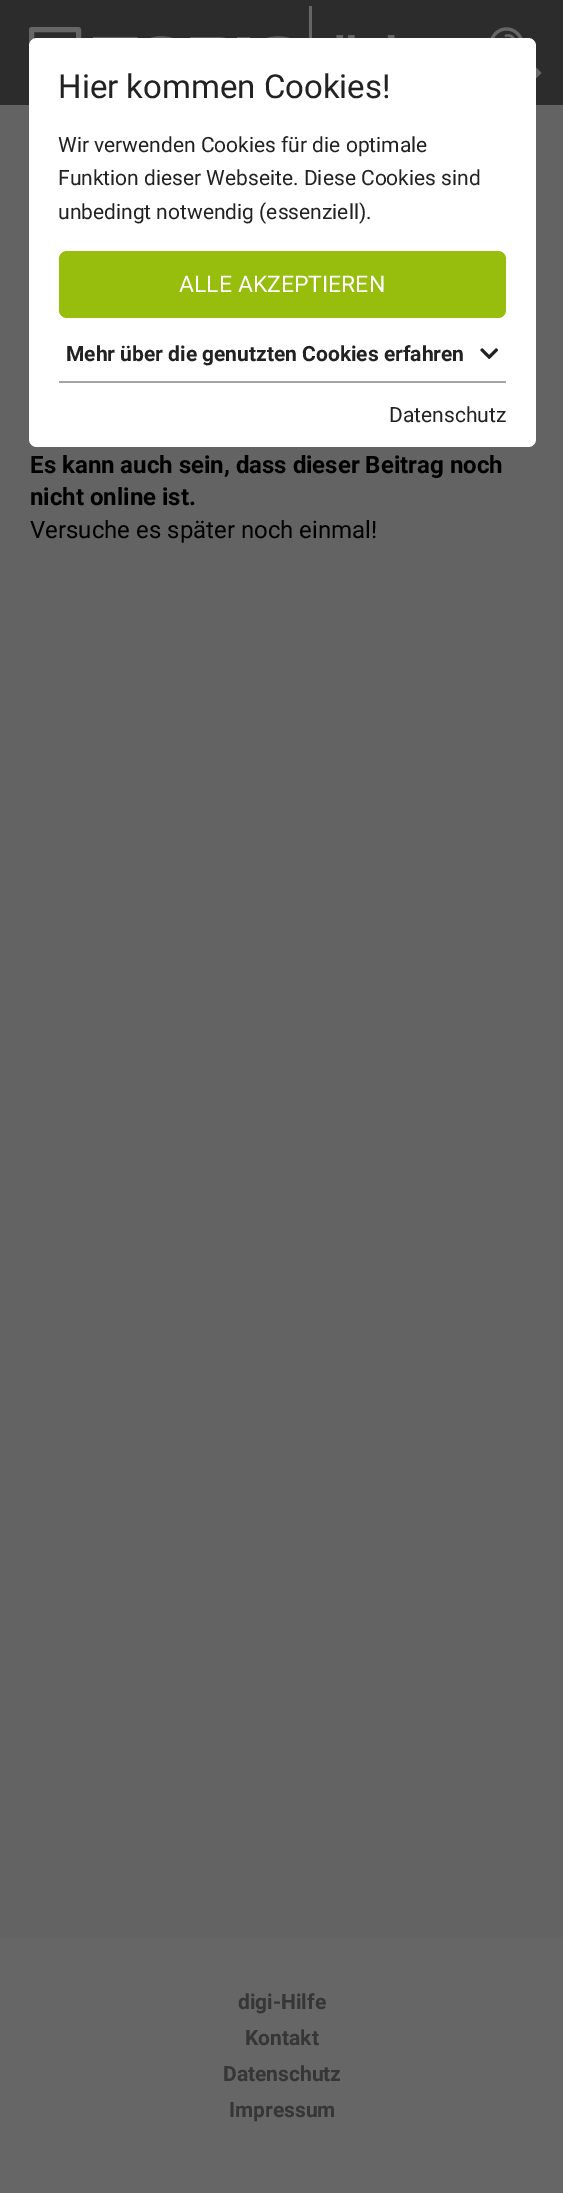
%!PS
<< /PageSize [563 2193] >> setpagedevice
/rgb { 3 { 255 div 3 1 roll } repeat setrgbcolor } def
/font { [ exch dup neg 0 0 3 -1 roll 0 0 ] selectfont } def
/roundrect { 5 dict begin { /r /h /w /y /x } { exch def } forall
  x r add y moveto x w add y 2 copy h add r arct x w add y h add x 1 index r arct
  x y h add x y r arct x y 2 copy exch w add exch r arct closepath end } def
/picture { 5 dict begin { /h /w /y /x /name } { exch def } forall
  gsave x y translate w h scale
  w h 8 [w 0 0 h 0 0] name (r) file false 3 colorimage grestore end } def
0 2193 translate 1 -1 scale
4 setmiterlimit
98 99 98 rgb
0 0 563 2193 rectfill
44 44 44 rgb
0 0 563 105 rectfill
102 102 102 rgb
5 setlinewidth
31.5 29.5 47 46 0.5 roundrect stroke
(img/3.rgb) 490 27 52 51 picture
255 255 255 rgb
29 38 507 409 8 roundrect fill
151 190 12 rgb
59 251 447 67 8 roundrect fill
(img/1.rgb) 480 348 19 12 picture
165 165 165 rgb
59 381 447 2 rectfill
(img/2.rgb) 93 6 302 32 picture
102 102 102 rgb
0 1938 563 255 rectfill
/Roboto-Regular 33 font
34 34 34 rgb
58 98 moveto (Hier kommen Cookies!) show
/Roboto-Regular 21 font
[
  [(Wir verwenden Cookies für die optimale) 58 152]
  [(Funktion dieser Webseite. Diese Cookies sind) 58 185]
  [(unbedingt notwendig \(essenziell\).) 58 219]
] { aload pop moveto show } forall
/Roboto-Regular 23 font
255 255 255 rgb
179 292 moveto (ALLE AKZEPTIEREN) show
/Roboto-Bold 21 font
34 34 34 rgb
66 361 moveto (Mehr über die genutzten Cookies erfahren) show
/Roboto-Regular 21 font
389 422 moveto (Datenschutz) show
/Roboto-Bold 24 font
0 0 0 rgb
30 473 moveto (Es kann auch sein, dass dieser Beitrag noch) show
30 505 moveto (nicht online ist.) show
/Roboto-Regular 24 font
30 538 moveto (Versuche es später noch einmal!) show
/Roboto-Bold 21 font
54 54 54 rgb
[
  [(digi-Hilfe) 238 2009]
  [(Kontakt) 245 2045]
  [(Datenschutz) 223 2081]
  [(Impressum) 229 2117]
] { aload pop moveto show } forall
showpage
